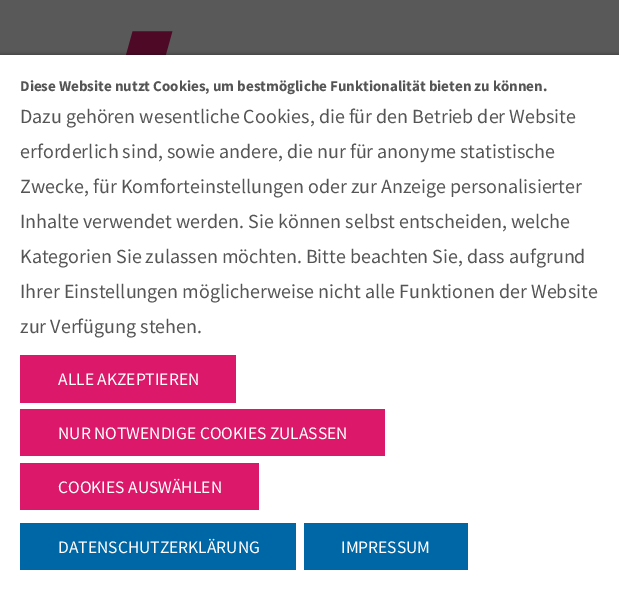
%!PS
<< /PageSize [619 590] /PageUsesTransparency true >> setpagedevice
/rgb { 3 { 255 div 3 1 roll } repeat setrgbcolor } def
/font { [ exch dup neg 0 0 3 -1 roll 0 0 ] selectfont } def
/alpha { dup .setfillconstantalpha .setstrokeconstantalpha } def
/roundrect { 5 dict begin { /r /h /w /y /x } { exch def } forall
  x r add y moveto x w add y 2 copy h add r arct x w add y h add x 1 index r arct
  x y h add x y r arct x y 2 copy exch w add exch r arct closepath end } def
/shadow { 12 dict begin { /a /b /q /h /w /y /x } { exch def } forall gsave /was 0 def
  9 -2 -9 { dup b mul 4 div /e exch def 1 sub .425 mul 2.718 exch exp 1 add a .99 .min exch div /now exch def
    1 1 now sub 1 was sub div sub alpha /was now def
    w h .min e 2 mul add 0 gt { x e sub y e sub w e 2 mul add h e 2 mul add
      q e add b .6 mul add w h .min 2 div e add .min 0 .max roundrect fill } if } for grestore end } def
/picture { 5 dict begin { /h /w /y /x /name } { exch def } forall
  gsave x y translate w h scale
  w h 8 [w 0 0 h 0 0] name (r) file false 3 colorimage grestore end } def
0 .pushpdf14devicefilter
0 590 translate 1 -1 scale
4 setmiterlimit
89 89 89 rgb
0 0 619 590 rectfill
(img/1.rgb) 126 31 47 24 picture
0 0 0 rgb
0 54 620 535 0 2 0.3 shadow
[
  [0 55 619 535 255 255 255]
  [20 355 216 48 219 24 105]
  [20 409 365 47 219 24 105]
  [20 463 239 47 219 24 105]
  [20 523 276 47 0 103 166]
  [304 523 164 47 0 103 166]
] { aload pop rgb rectfill } forall
/SourceSansPro-Bold 15 font
85 85 85 rgb
20 91 moveto (Diese Website nutzt Cookies, um bestmögliche Funktionalität bieten zu können.) show
/SourceSansPro-Regular 20 font
[
  [(Dazu gehören wesentliche Cookies, die für den Betrieb der Website) 20 123]
  [(erforderlich sind, sowie andere, die nur für anonyme statistische) 20 158]
  [(Zwecke, für Komforteinstellungen oder zur Anzeige personalisierter) 20 193]
  [(Inhalte verwendet werden. Sie können selbst entscheiden, welche) 20 228]
  [(Kategorien Sie zulassen möchten. Bitte beachten Sie, dass aufgrund) 20 263]
  [(Ihrer Einstellungen möglicherweise nicht alle Funktionen der Website) 20 298]
  [(zur Verfügung stehen.) 20 333]
] { aload pop moveto show } forall
/SourceSansPro-Regular 17.5 font
255 255 255 rgb
[
  [(ALLE AKZEPTIEREN) 58 385]
  [(NUR NOTWENDIGE COOKIES ZULASSEN) 58 439]
  [(COOKIES AUSWÄHLEN) 58 493]
  [(DATENSCHUTZERKLÄRUNG) 58 553]
  [(IMPRESSUM) 341 553]
] { aload pop moveto show } forall
.poppdf14devicefilter showpage
